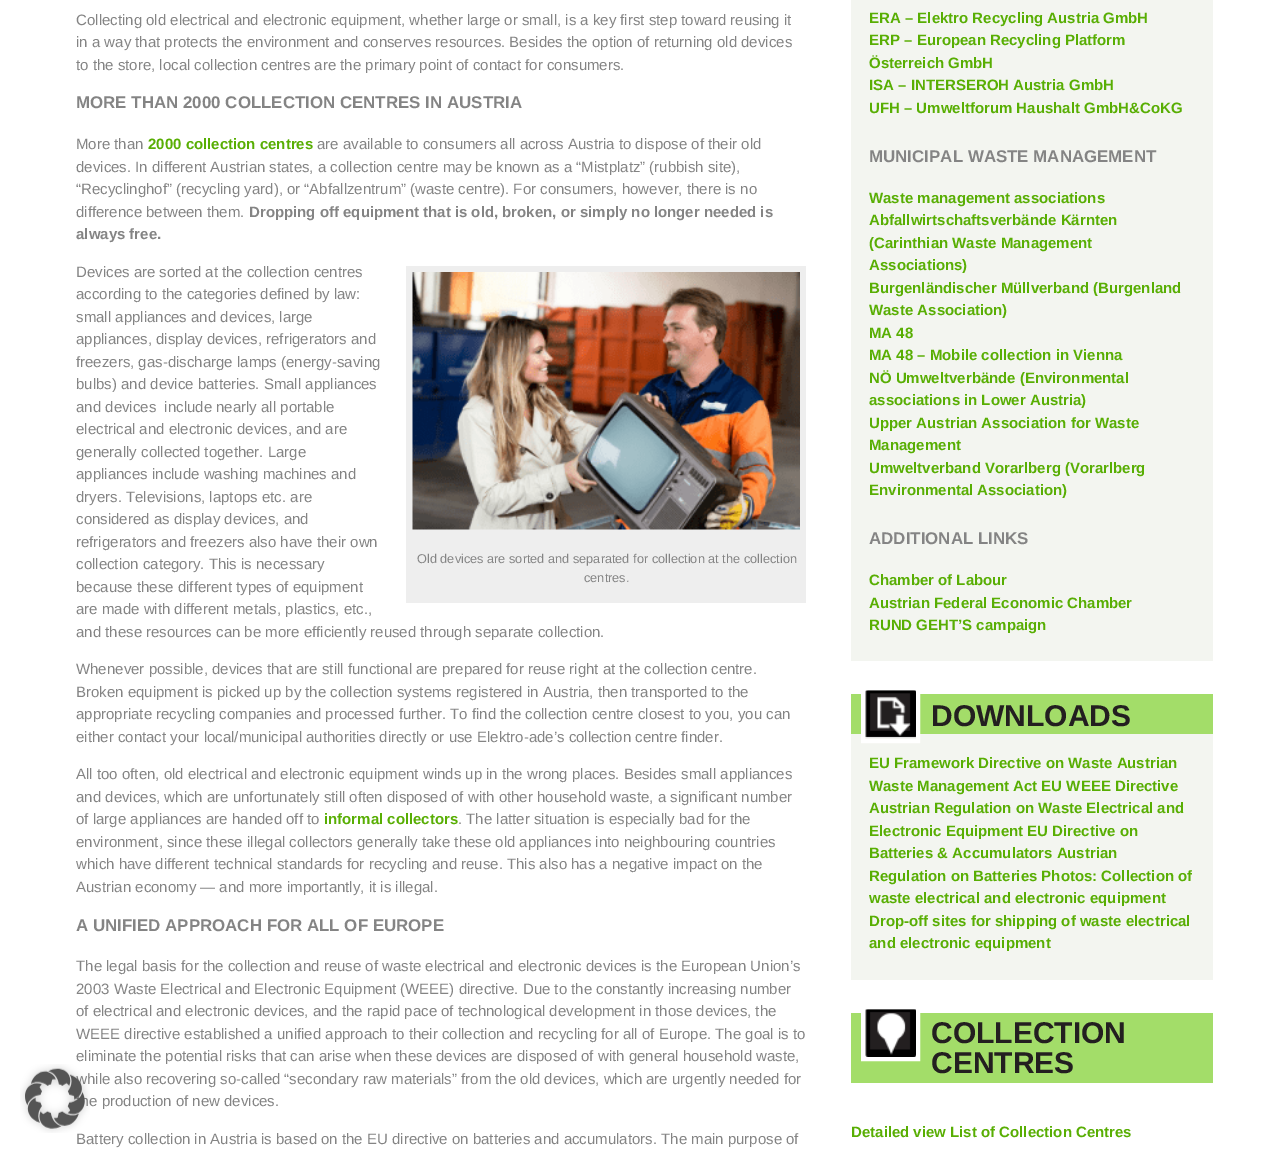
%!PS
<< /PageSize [1276 1153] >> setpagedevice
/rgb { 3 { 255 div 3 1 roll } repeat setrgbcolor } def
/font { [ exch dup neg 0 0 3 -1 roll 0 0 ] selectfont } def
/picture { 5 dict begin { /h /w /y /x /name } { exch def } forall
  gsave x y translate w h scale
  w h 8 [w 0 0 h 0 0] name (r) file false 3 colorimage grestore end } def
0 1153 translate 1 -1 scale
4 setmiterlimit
255 255 255 rgb
0 0 1276 1153 rectfill
238 238 238 rgb
406 266 400 337 rectfill
(img/2.rgb) 412 272 388 258 picture
[
  [851 0 362 661 243 245 240]
  [851 734 362 246 243 245 240]
  [851 694 362 40 163 221 105]
] { aload pop rgb rectfill } forall
(img/3.rgb) 865 690 51 48 picture
255 255 255 rgb
4 setlinewidth
863 688 55 53 rectstroke
163 221 105 rgb
851 1013 362 70 rectfill
(img/4.rgb) 865 1009 51 48 picture
255 255 255 rgb
863 1007 55 52 rectstroke
/LiberationSans-Regular 15 font
132 132 132 rgb
[
  [(Collecting old electrical and electronic equipment, whether large or small, is a key first step toward reusing it) 76 25]
  [(in a way that protects the environment and conserves resources. Besides the option of returning old devices) 76 47]
  [(to the store, local collection centres are the primary point of contact for consumers.) 76 70]
] { aload pop moveto show } forall
/LiberationSans-Bold 16.9 font
76 108 moveto (MORE THAN 2000 COLLECTION CENTRES IN AUSTRIA) show
/LiberationSans-Regular 15 font
76 149 moveto (More than) show
/LiberationSans-Bold 15 font
88 174 3 rgb
148 149 moveto (2000 collection centres) show
/LiberationSans-Regular 15 font
132 132 132 rgb
[
  [(are available to consumers all across Austria to dispose of their old) 317 149]
  [(devices. In different Austrian states, a collection centre may be known as a “Mistplatz” \(rubbish site\),) 76 172]
  [(“Recyclinghof” \(recycling yard\), or “Abfallzentrum” \(waste centre\). For consumers, however, there is no) 76 194]
  [(difference between them.) 76 217]
] { aload pop moveto show } forall
/LiberationSans-Bold 15 font
249 217 moveto (Dropping off equipment that is old, broken, or simply no longer needed is) show
76 239 moveto (always free.) show
/LiberationSans-Regular 15 font
[
  [(Devices are sorted at the collection centres) 76 277]
  [(according to the categories defined by law:) 76 299]
  [(small appliances and devices, large) 76 322]
  [(appliances, display devices, refrigerators and) 76 344]
  [(freezers, gas-discharge lamps \(energy-saving) 76 367]
  [(bulbs\) and device batteries. Small appliances) 76 389]
  [(and devices  include nearly all portable) 76 412]
  [(electrical and electronic devices, and are) 76 434]
  [(generally collected together. Large) 76 457]
  [(appliances include washing machines and) 76 479]
  [(dryers. Televisions, laptops etc. are) 76 502]
  [(considered as display devices, and) 76 524]
  [(refrigerators and freezers also have their own) 76 547]
  [(collection category. This is necessary) 76 569]
  [(because these different types of equipment) 76 592]
  [(are made with different metals, plastics, etc.,) 76 614]
  [(and these resources can be more efficiently reused through separate collection.) 76 637]
] { aload pop moveto show } forall
/LiberationSans-Regular 12.75 font
417 563 moveto (Old devices are sorted and separated for collection at the collection) show
584 582 moveto (centres.) show
/LiberationSans-Regular 15 font
[
  [(Whenever possible, devices that are still functional are prepared for reuse right at the collection centre.) 76 674]
  [(Broken equipment is picked up by the collection systems registered in Austria, then transported to the) 76 697]
  [(appropriate recycling companies and processed further. To find the collection centre closest to you, you can) 76 719]
  [(either contact your local/municipal authorities directly or use Elektro-ade’s collection centre finder.) 76 742]
  [(All too often, old electrical and electronic equipment winds up in the wrong places. Besides small appliances) 76 779]
  [(and devices, which are unfortunately still often disposed of with other household waste, a significant number) 76 802]
  [(of large appliances are handed off to) 76 824]
] { aload pop moveto show } forall
/LiberationSans-Bold 15 font
88 174 3 rgb
324 824 moveto (informal collectors) show
/LiberationSans-Regular 15 font
132 132 132 rgb
[
  [(. The latter situation is especially bad for the) 458 824]
  [(environment, since these illegal collectors generally take these old appliances into neighbouring countries) 76 847]
  [(which have different technical standards for recycling and reuse. This also has a negative impact on the) 76 869]
  [(Austrian economy — and more importantly, it is illegal.) 76 892]
] { aload pop moveto show } forall
/LiberationSans-Bold 16.9 font
76 931 moveto (A UNIFIED APPROACH FOR ALL OF EUROPE) show
/LiberationSans-Regular 15 font
[
  [(The legal basis for the collection and reuse of waste electrical and electronic devices is the European Union’s) 76 971]
  [(2003 Waste Electrical and Electronic Equipment \(WEEE\) directive. Due to the constantly increasing number) 76 994]
  [(of electrical and electronic devices, and the rapid pace of technological development in those devices, the) 76 1016]
  [(WEEE directive established a unified approach to their collection and recycling for all of Europe. The goal is to) 76 1039]
  [(eliminate the potential risks that can arise when these devices are disposed of with general household waste,) 76 1061]
  [(while also recovering so-called “secondary raw materials” from the old devices, which are urgently needed for) 76 1084]
  [(e production of new devices.) 89 1106]
] { aload pop moveto show } forall
(img/1.rgb) 20 1064 70 69 picture
76 1144 moveto (Battery collection in Austria is based on the EU directive on batteries and accumulators. The main purpose of) show
/LiberationSans-Bold 15 font
88 174 3 rgb
[
  [(ERA – Elektro Recycling Austria GmbH) 869 23]
  [(ERP – European Recycling Platform) 869 45]
  [(Österreich GmbH) 869 68]
  [(ISA – INTERSEROH Austria GmbH) 869 90]
  [(UFH – Umweltforum Haushalt GmbH&CoKG) 869 113]
] { aload pop moveto show } forall
/LiberationSans-Bold 16.9 font
132 132 132 rgb
869 162 moveto (MUNICIPAL WASTE MANAGEMENT) show
/LiberationSans-Bold 15 font
88 174 3 rgb
[
  [(Waste management associations) 869 203]
  [(Abfallwirtschaftsverbände Kärnten) 869 225]
  [(\(Carinthian Waste Management) 869 248]
  [(Associations\)) 869 270]
  [(Burgenländischer Müllverband \(Burgenland) 869 293]
  [(Waste Association\)) 869 315]
  [(MA 48) 869 338]
  [(MA 48 – Mobile collection in Vienna) 869 360]
  [(NÖ Umweltverbände \(Environmental) 869 383]
  [(associations in Lower Austria\)) 869 405]
  [(Upper Austrian Association for Waste) 869 428]
  [(Management) 869 450]
  [(Umweltverband Vorarlberg \(Vorarlberg) 869 473]
  [(Environmental Association\)) 869 495]
] { aload pop moveto show } forall
/LiberationSans-Bold 16.9 font
132 132 132 rgb
869 544 moveto (ADDITIONAL LINKS) show
/LiberationSans-Bold 15 font
88 174 3 rgb
[
  [(Chamber of Labour) 869 585]
  [(Austrian Federal Economic Chamber) 869 608]
  [(RUND GEHT’S campaign) 869 630]
] { aload pop moveto show } forall
/LiberationSans-Bold 30 font
35 31 32 rgb
931 726 moveto (DOWNLOADS) show
/LiberationSans-Bold 15 font
88 174 3 rgb
[
  [(EU Framework Directive on Waste Austrian) 869 768]
  [(Waste Management Act EU WEEE Directive) 869 791]
  [(Austrian Regulation on Waste Electrical and) 869 813]
  [(Electronic Equipment EU Directive on) 869 836]
  [(Batteries & Accumulators Austrian) 869 858]
  [(Regulation on Batteries Photos: Collection of) 869 881]
  [(waste electrical and electronic equipment) 869 903]
  [(Drop-off sites for shipping of waste electrical) 869 926]
  [(and electronic equipment) 869 948]
] { aload pop moveto show } forall
/LiberationSans-Bold 30 font
35 31 32 rgb
931 1043 moveto (COLLECTION) show
931 1073 moveto (CENTRES) show
/LiberationSans-Bold 15 font
88 174 3 rgb
851 1137 moveto (Detailed view List of Collection Centres) show
showpage
